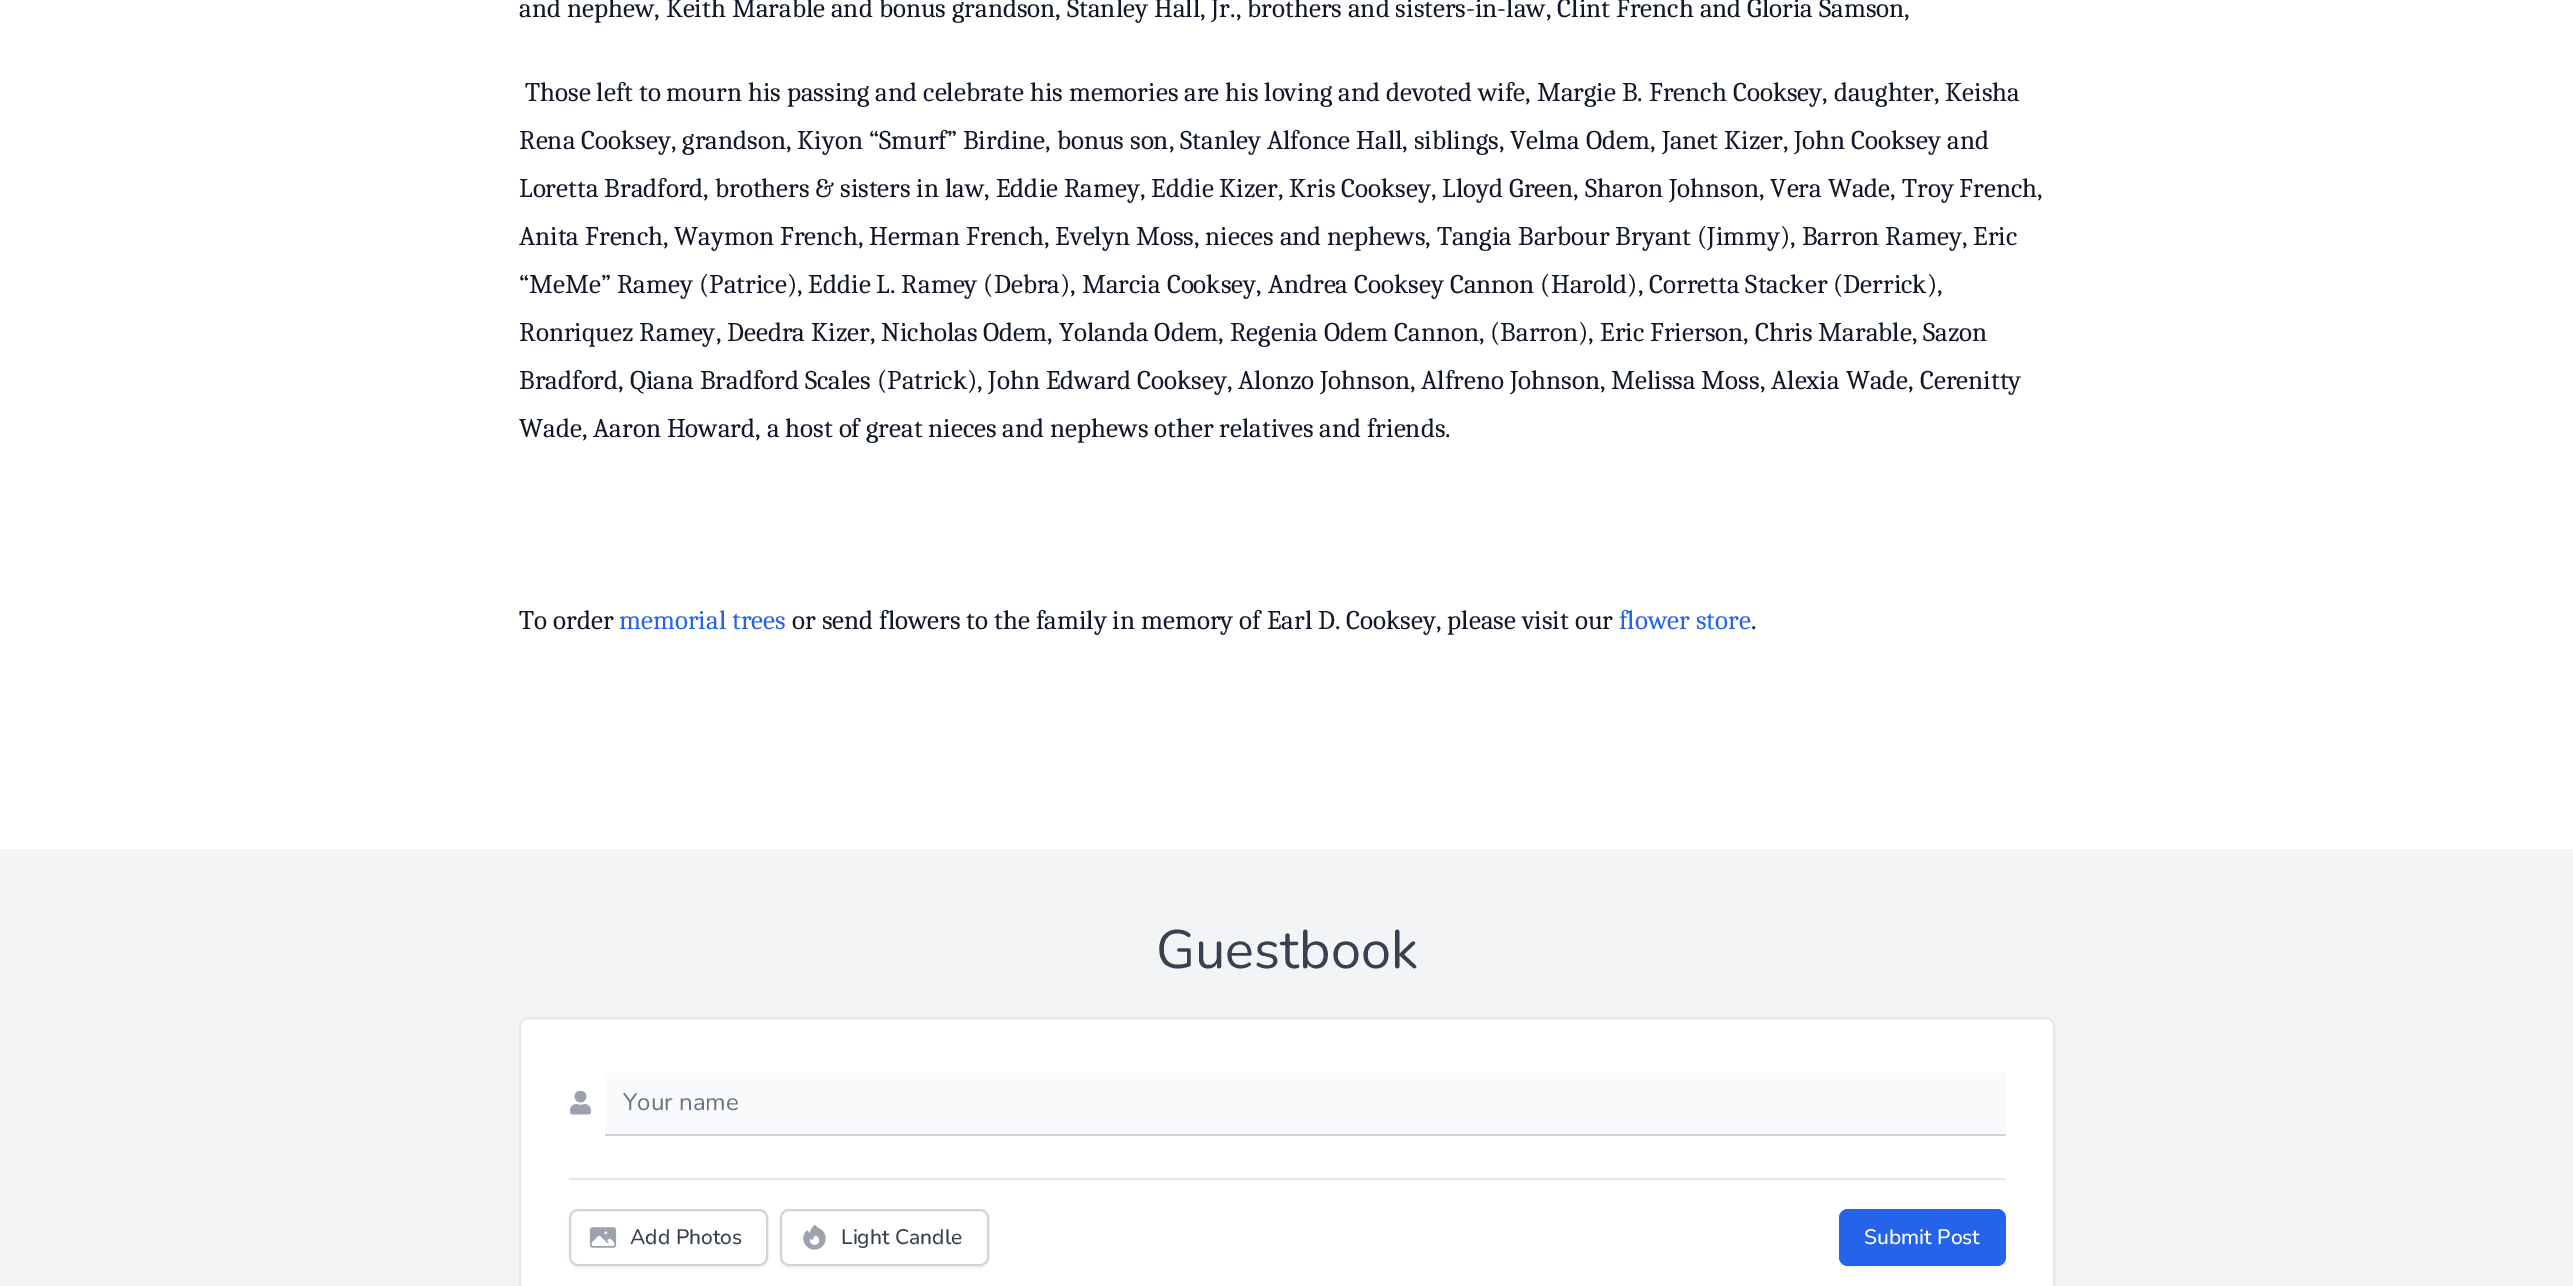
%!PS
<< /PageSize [2573 1286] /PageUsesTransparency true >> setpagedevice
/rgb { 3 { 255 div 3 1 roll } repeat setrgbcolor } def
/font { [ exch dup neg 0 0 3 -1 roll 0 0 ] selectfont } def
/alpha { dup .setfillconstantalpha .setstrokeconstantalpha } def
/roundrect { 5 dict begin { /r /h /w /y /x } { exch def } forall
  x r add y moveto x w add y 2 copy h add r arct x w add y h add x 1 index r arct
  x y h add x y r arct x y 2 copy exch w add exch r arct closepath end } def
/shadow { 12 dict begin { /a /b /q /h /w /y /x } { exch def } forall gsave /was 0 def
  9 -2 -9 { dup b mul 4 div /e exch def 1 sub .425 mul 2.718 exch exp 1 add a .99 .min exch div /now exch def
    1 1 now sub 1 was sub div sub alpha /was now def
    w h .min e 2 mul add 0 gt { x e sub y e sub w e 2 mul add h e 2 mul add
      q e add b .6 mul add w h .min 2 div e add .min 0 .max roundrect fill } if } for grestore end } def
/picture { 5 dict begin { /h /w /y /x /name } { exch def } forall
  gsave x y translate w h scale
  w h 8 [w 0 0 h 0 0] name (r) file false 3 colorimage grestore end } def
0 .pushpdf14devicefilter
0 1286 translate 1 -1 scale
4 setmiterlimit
255 255 255 rgb
0 0 2573 1286 rectfill
243 244 246 rgb
0 849 2573 437 rectfill
255 255 255 rgb
520 1018 1534 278 8 roundrect gsave fill grestore
229 231 235 rgb
2 setlinewidth
stroke
(img/1.rgb) 570 1091 21 24 picture
[
  [605 1134 1401 2 209 213 219]
  [605 1073 1401 61 249 250 251]
  [569 1178 1437 2 229 231 235]
] { aload pop rgb rectfill } forall
0 0 0 rgb
569 1211 199 57 9 1.5 0.05 shadow
255 255 255 rgb
570 1210 197 55 8 roundrect gsave fill grestore
209 213 219 rgb
stroke
(img/2.rgb) 589 1227 28 21 picture
0 0 0 rgb
780 1211 209 57 9 1.5 0.05 shadow
255 255 255 rgb
781 1210 207 55 8 roundrect gsave fill grestore
209 213 219 rgb
stroke
(img/3.rgb) 803 1225 23 25 picture
0 0 0 rgb
1839 1211 167 57 9 1.5 0.05 shadow
37 99 235 rgb
1839 1209 167 57 9 roundrect fill
/Caladea-Regular 27 font
17 24 39 rgb
[
  [(and nephew, Keith Marable and bonus grandson, Stanley Hall, Jr., brothers and sisters-in-law, Clint French and Gloria Samson,) 519 17]
  [(Those left to mourn his passing and celebrate his memories are his loving and devoted wife, Margie B. French Cooksey, daughter, Keisha) 525 101]
  [(Rena Cooksey, grandson, Kiyon “Smurf” Birdine, bonus son, Stanley Alfonce Hall, siblings, Velma Odem, Janet Kizer, John Cooksey and) 519 149]
  [(Loretta Bradford, brothers & sisters in law, Eddie Ramey, Eddie Kizer, Kris Cooksey, Lloyd Green, Sharon Johnson, Vera Wade, Troy French,) 519 197]
  [(Anita French, Waymon French, Herman French, Evelyn Moss, nieces and nephews, Tangia Barbour Bryant \(Jimmy\), Barron Ramey, Eric) 519 245]
  [(“MeMe” Ramey \(Patrice\), Eddie L. Ramey \(Debra\), Marcia Cooksey, Andrea Cooksey Cannon \(Harold\), Corretta Stacker \(Derrick\),) 519 293]
  [(Ronriquez Ramey, Deedra Kizer, Nicholas Odem, Yolanda Odem, Regenia Odem Cannon, \(Barron\), Eric Frierson, Chris Marable, Sazon) 519 341]
  [(Bradford, Qiana Bradford Scales \(Patrick\), John Edward Cooksey, Alonzo Johnson, Alfreno Johnson, Melissa Moss, Alexia Wade, Cerenitty) 519 389]
  [(Wade, Aaron Howard, a host of great nieces and nephews other relatives and friends.) 519 437]
  [(To order) 519 629]
] { aload pop moveto show } forall
37 99 235 rgb
619 629 moveto (memorial trees) show
17 24 39 rgb
792 629 moveto (or send flowers to the family in memory of Earl D. Cooksey, please visit our) show
37 99 235 rgb
1619 629 moveto (flower store) show
17 24 39 rgb
1751 629 moveto (.) show
/Nunito-Regular 54 font
55 65 81 rgb
1156 968 moveto (Guestbook) show
/Nunito-Regular 24 font
107 114 128 rgb
623 1110 moveto (Your name) show
/Nunito-Medium 21 font
55 65 81 rgb
630 1244 moveto (Add Photos) show
841 1244 moveto (Light Candle) show
255 255 255 rgb
1864 1244 moveto (Submit Post) show
.poppdf14devicefilter showpage
